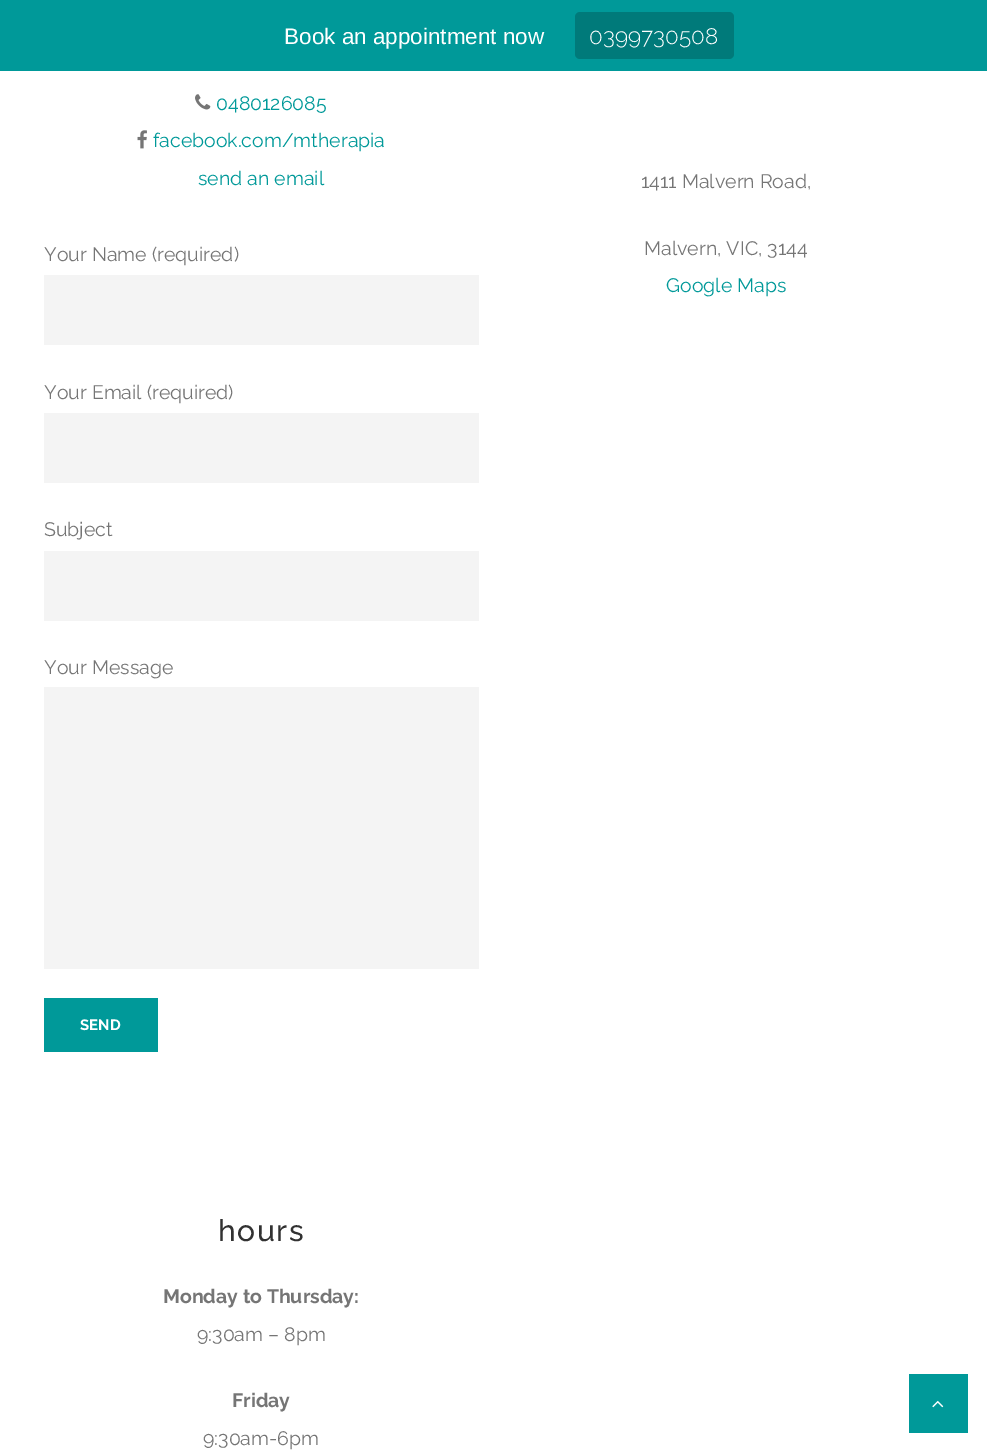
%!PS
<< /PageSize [987 1452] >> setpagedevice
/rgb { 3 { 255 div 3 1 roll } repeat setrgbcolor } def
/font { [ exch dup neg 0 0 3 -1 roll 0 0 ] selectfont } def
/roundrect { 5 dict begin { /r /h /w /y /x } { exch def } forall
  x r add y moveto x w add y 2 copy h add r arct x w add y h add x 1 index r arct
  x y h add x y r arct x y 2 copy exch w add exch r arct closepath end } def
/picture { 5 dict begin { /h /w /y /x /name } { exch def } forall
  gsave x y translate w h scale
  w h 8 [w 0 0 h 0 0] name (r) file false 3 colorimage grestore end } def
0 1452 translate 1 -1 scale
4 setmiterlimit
255 255 255 rgb
0 0 987 1452 rectfill
0 153 153 rgb
0 0 987 71 rectfill
0 122 122 rgb
575 12 159 47 5 roundrect fill
(img/1.rgb) 195 94 16 16 picture
(img/2.rgb) 137 130 10 19 picture
[
  [44 275 435 70 244 244 244]
  [44 413 435 70 244 244 244]
  [44 551 435 70 244 244 244]
  [44 687 435 282 244 244 244]
  [44 998 114 54 0 153 153]
  [909 1374 59 59 0 153 153]
] { aload pop rgb rectfill } forall
(img/3.rgb) 932 1400 12 8 picture
/LiberationSans-Regular 22.5 font
255 255 255 rgb
284 44 moveto (Book an appointment now) show
/Raleway-Light 22.5 font
589 44 moveto (0399730508) show
/Raleway-Regular 19.5 font
0 153 153 rgb
[
  [(0480126085) 216 110]
  [(facebook.com/mtherapia) 153 147]
  [(send an email) 198 185]
] { aload pop moveto show } forall
117 117 117 rgb
[
  [(Your Name \(required\)) 44 261]
  [(Your Email \(required\)) 44 399]
  [(Subject) 44 536]
  [(Your Message) 44 674]
] { aload pop moveto show } forall
/Raleway-Bold 15 font
255 255 255 rgb
80 1030 moveto (SEND) show
/Raleway-Regular 19.5 font
117 117 117 rgb
641 188 moveto (1411 Malvern Road,) show
644 255 moveto (Malvern, VIC, 3144) show
0 153 153 rgb
666 292 moveto (Google Maps) show
/Raleway-Medium 30 font
50 50 50 rgb
218 1241 moveto 1.5 0 (hours) ashow
/Raleway-Bold 19.5 font
117 117 117 rgb
163 1303 moveto (Monday to Thursday:) show
/Raleway-Regular 19.5 font
197 1341 moveto (9:30am – 8pm) show
/Raleway-Bold 19.5 font
232 1407 moveto (Friday) show
/Raleway-Regular 19.5 font
203 1445 moveto (9:30am-6pm) show
showpage
